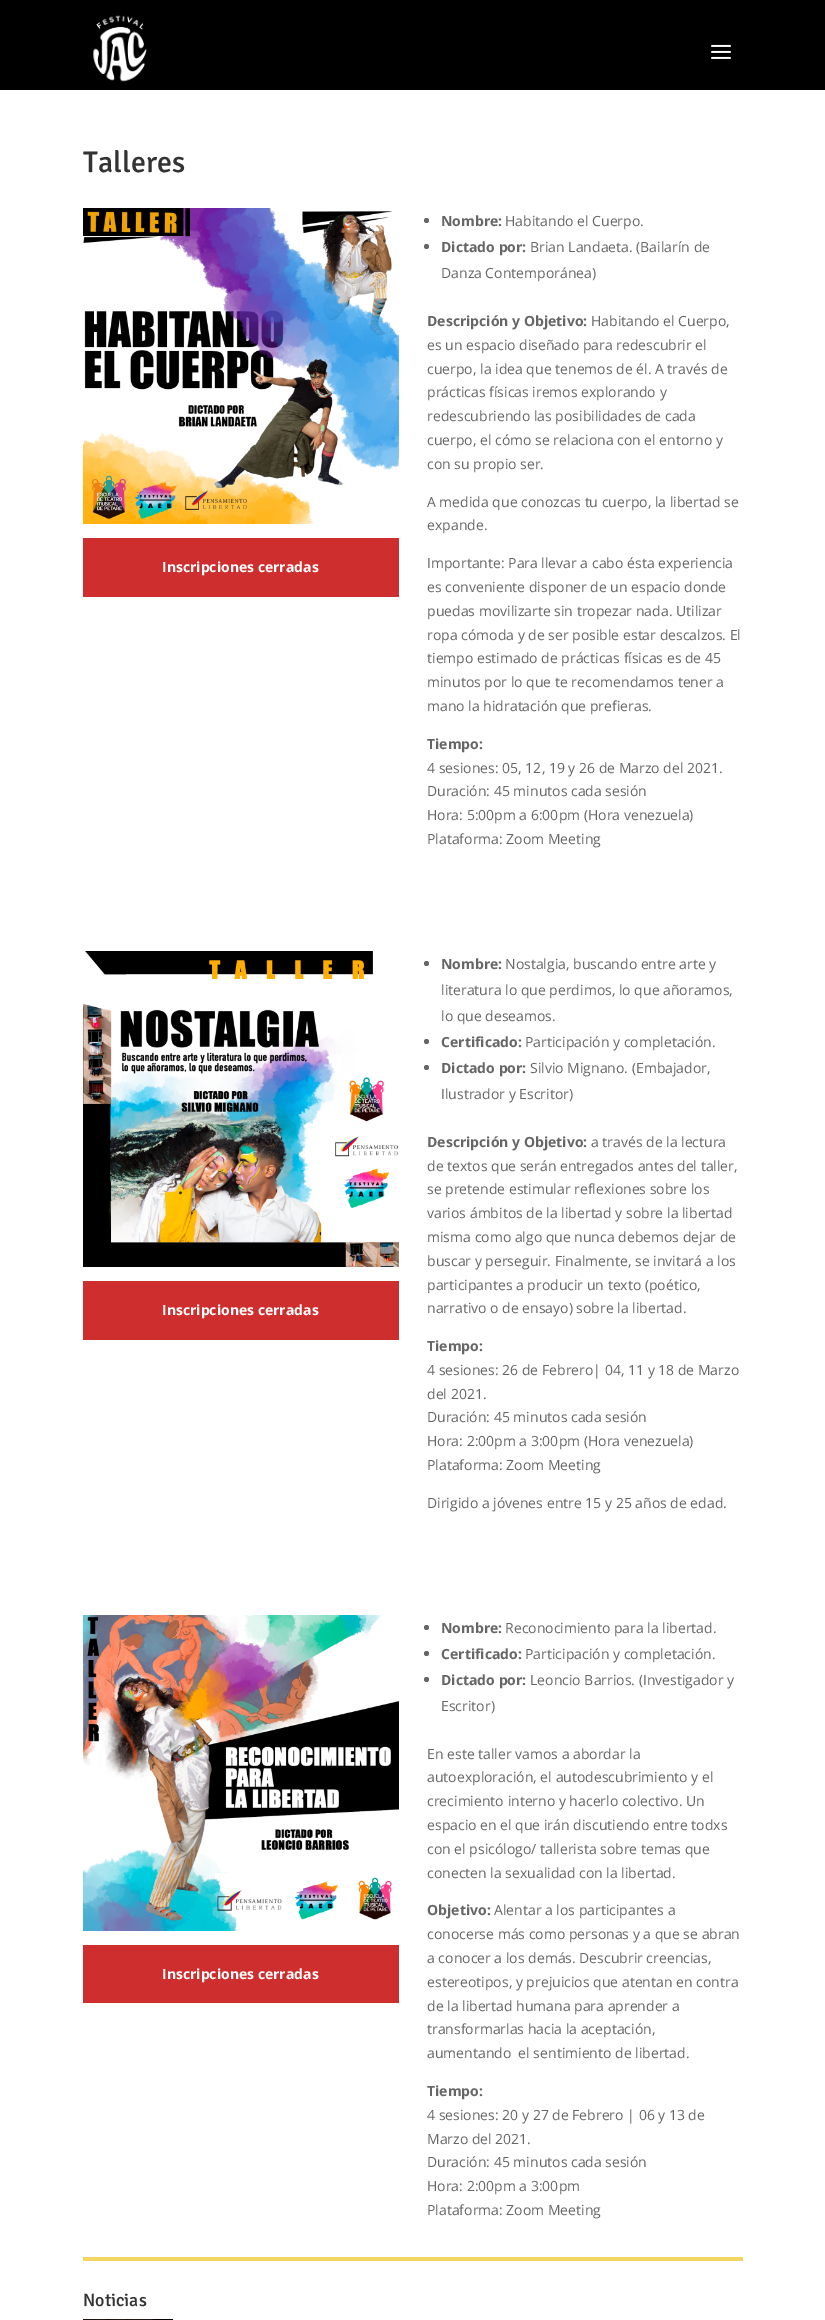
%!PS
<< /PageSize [825 2320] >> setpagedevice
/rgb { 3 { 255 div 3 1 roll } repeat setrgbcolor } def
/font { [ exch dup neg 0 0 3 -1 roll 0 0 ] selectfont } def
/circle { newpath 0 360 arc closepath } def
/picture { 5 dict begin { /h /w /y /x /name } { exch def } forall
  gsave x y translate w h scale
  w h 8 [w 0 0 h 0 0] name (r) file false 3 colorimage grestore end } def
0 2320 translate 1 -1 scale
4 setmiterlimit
255 255 255 rgb
0 0 825 2320 rectfill
0 0 0 rgb
0 0 825 90 rectfill
(img/1.rgb) 93 15 54 67 picture
(img/2.rgb) 711 44 20 15 picture
(img/3.rgb) 83 208 316 316 picture
207 46 46 rgb
83 538 316 59 rectfill
102 102 102 rgb
426.5 220.5 2.5 circle fill
426.5 246.5 2.5 circle fill
(img/4.rgb) 83 951 316 316 picture
207 46 46 rgb
83 1281 316 59 rectfill
102 102 102 rgb
426.5 963.5 2.5 circle fill
426.5 1041.5 2.5 circle fill
426.5 1067.5 2.5 circle fill
(img/5.rgb) 83 1615 316 316 picture
207 46 46 rgb
83 1945 316 58 rectfill
102 102 102 rgb
426.5 1627.5 2.5 circle fill
426.5 1653.5 2.5 circle fill
426.5 1679.5 2.5 circle fill
242 213 99 rgb
83 2257 660 4 rectfill
(img/6.rgb) 83 2319 90 1 picture
/SignikaNegative-Medium 30 font
51 51 51 rgb
83 172 moveto (Talleres) show
/OpenSans-Bold 14 font
255 255 255 rgb
162 572 moveto (Inscripciones cerradas) show
102 102 102 rgb
441 226 moveto (Nombre:) show
/OpenSans-Regular 14 font
505 226 moveto (Habitando el Cuerpo.) show
/OpenSans-Bold 14 font
441 252 moveto (Dictado por:) show
/OpenSans-Regular 14 font
530 252 moveto (Brian Landaeta. \(Bailarín de) show
441 278 moveto (Danza Contemporánea\)) show
/OpenSans-Bold 14 font
427 326 moveto (Descripción y Objetivo:) show
/OpenSans-Regular 14 font
[
  [(Habitando el Cuerpo,) 591 326]
  [(es un espacio diseñado para redescubrir el) 427 350]
  [(cuerpo, la idea que tenemos de él. A través de) 427 374]
  [(prácticas físicas iremos explorando y) 427 397]
  [(redescubriendo las posibilidades de cada) 427 421]
  [(cuerpo, el cómo se relaciona con el entorno y) 427 445]
  [(con su propio ser.) 427 469]
  [(A medida que conozcas tu cuerpo, la libertad se) 427 507]
  [(expande.) 427 530]
  [(Importante: Para llevar a cabo ésta experiencia) 427 568]
  [(es conveniente disponer de un espacio donde) 427 592]
  [(puedas movilizarte sin tropezar nada. Utilizar) 427 616]
  [(ropa cómoda y de ser posible estar descalzos. El) 427 640]
  [(tiempo estimado de prácticas físicas es de 45) 427 663]
  [(minutos por lo que te recomendamos tener a) 427 687]
  [(mano la hidratación que prefieras.) 427 711]
] { aload pop moveto show } forall
/OpenSans-Bold 14 font
427 749 moveto (Tiempo:) show
/OpenSans-Regular 14 font
[
  [(4 sesiones: 05, 12, 19 y 26 de Marzo del 2021.) 427 773]
  [(Duración: 45 minutos cada sesión) 427 796]
  [(Hora: 5:00pm a 6:00pm \(Hora venezuela\)) 427 820]
  [(Plataforma: Zoom Meeting) 427 844]
] { aload pop moveto show } forall
/OpenSans-Bold 14 font
255 255 255 rgb
162 1315 moveto (Inscripciones cerradas) show
102 102 102 rgb
441 969 moveto (Nombre:) show
/OpenSans-Regular 14 font
[
  [(Nostalgia, buscando entre arte y) 505 969]
  [(literatura lo que perdimos, lo que añoramos,) 441 995]
  [(lo que deseamos.) 441 1021]
] { aload pop moveto show } forall
/OpenSans-Bold 14 font
441 1047 moveto (Certificado:) show
/OpenSans-Regular 14 font
525 1047 moveto (Participación y completación.) show
/OpenSans-Bold 14 font
441 1073 moveto (Dictado por:) show
/OpenSans-Regular 14 font
530 1073 moveto (Silvio Mignano. \(Embajador,) show
441 1099 moveto (Ilustrador y Escritor\)) show
/OpenSans-Bold 14 font
427 1147 moveto (Descripción y Objetivo:) show
/OpenSans-Regular 14 font
[
  [(a través de la lectura) 591 1147]
  [(de textos que serán entregados antes del taller,) 427 1171]
  [(se pretende estimular reflexiones sobre los) 427 1194]
  [(varios ámbitos de la libertad y sobre la libertad) 427 1218]
  [(misma como algo que nunca debemos dejar de) 427 1242]
  [(buscar y perseguir. Finalmente, se invitará a los) 427 1266]
  [(participantes a producir un texto \(poético,) 427 1290]
  [(narrativo o de ensayo\) sobre la libertad.) 427 1313]
] { aload pop moveto show } forall
/OpenSans-Bold 14 font
427 1351 moveto (Tiempo:) show
/OpenSans-Regular 14 font
[
  [(4 sesiones: 26 de Febrero| 04, 11 y 18 de Marzo) 427 1375]
  [(del 2021.) 427 1399]
  [(Duración: 45 minutos cada sesión) 427 1422]
  [(Hora: 2:00pm a 3:00pm \(Hora venezuela\)) 427 1446]
  [(Plataforma: Zoom Meeting) 427 1470]
  [(Dirigido a jóvenes entre 15 y 25 años de edad.) 427 1508]
] { aload pop moveto show } forall
/OpenSans-Bold 14 font
255 255 255 rgb
162 1979 moveto (Inscripciones cerradas) show
102 102 102 rgb
441 1633 moveto (Nombre:) show
/OpenSans-Regular 14 font
505 1633 moveto (Reconocimiento para la libertad.) show
/OpenSans-Bold 14 font
441 1659 moveto (Certificado:) show
/OpenSans-Regular 14 font
525 1659 moveto (Participación y completación.) show
/OpenSans-Bold 14 font
441 1685 moveto (Dictado por:) show
/OpenSans-Regular 14 font
[
  [(Leoncio Barrios. \(Investigador y) 530 1685]
  [(Escritor\)) 441 1711]
  [(En este taller vamos a abordar la) 427 1759]
  [(autoexploración, el autodescubrimiento y el) 427 1782]
  [(crecimiento interno y hacerlo colectivo. Un) 427 1806]
  [(espacio en el que irán discutiendo entre todxs) 427 1830]
  [(con el psicólogo/ tallerista sobre temas que) 427 1854]
  [(conecten la sexualidad con la libertad.) 427 1878]
] { aload pop moveto show } forall
/OpenSans-Bold 14 font
427 1915 moveto (Objetivo:) show
/OpenSans-Regular 14 font
[
  [(Alentar a los participantes a) 494 1915]
  [(conocerse más como personas y a que se abran) 427 1939]
  [(a conocer a los demás. Descubrir creencias,) 427 1963]
  [(estereotipos, y prejuicios que atentan en contra) 427 1987]
  [(de la libertad humana para aprender a) 427 2011]
  [(transformarlas hacia la aceptación,) 427 2034]
  [(aumentando  el sentimiento de libertad.) 427 2058]
] { aload pop moveto show } forall
/OpenSans-Bold 14 font
427 2096 moveto (Tiempo:) show
/OpenSans-Regular 14 font
[
  [(4 sesiones: 20 y 27 de Febrero | 06 y 13 de) 427 2120]
  [(Marzo del 2021.) 427 2144]
  [(Duración: 45 minutos cada sesión) 427 2167]
  [(Hora: 2:00pm a 3:00pm) 427 2191]
  [(Plataforma: Zoom Meeting) 427 2215]
] { aload pop moveto show } forall
/SignikaNegative-Medium 18 font
51 51 51 rgb
83 2306 moveto (Noticias) show
showpage
